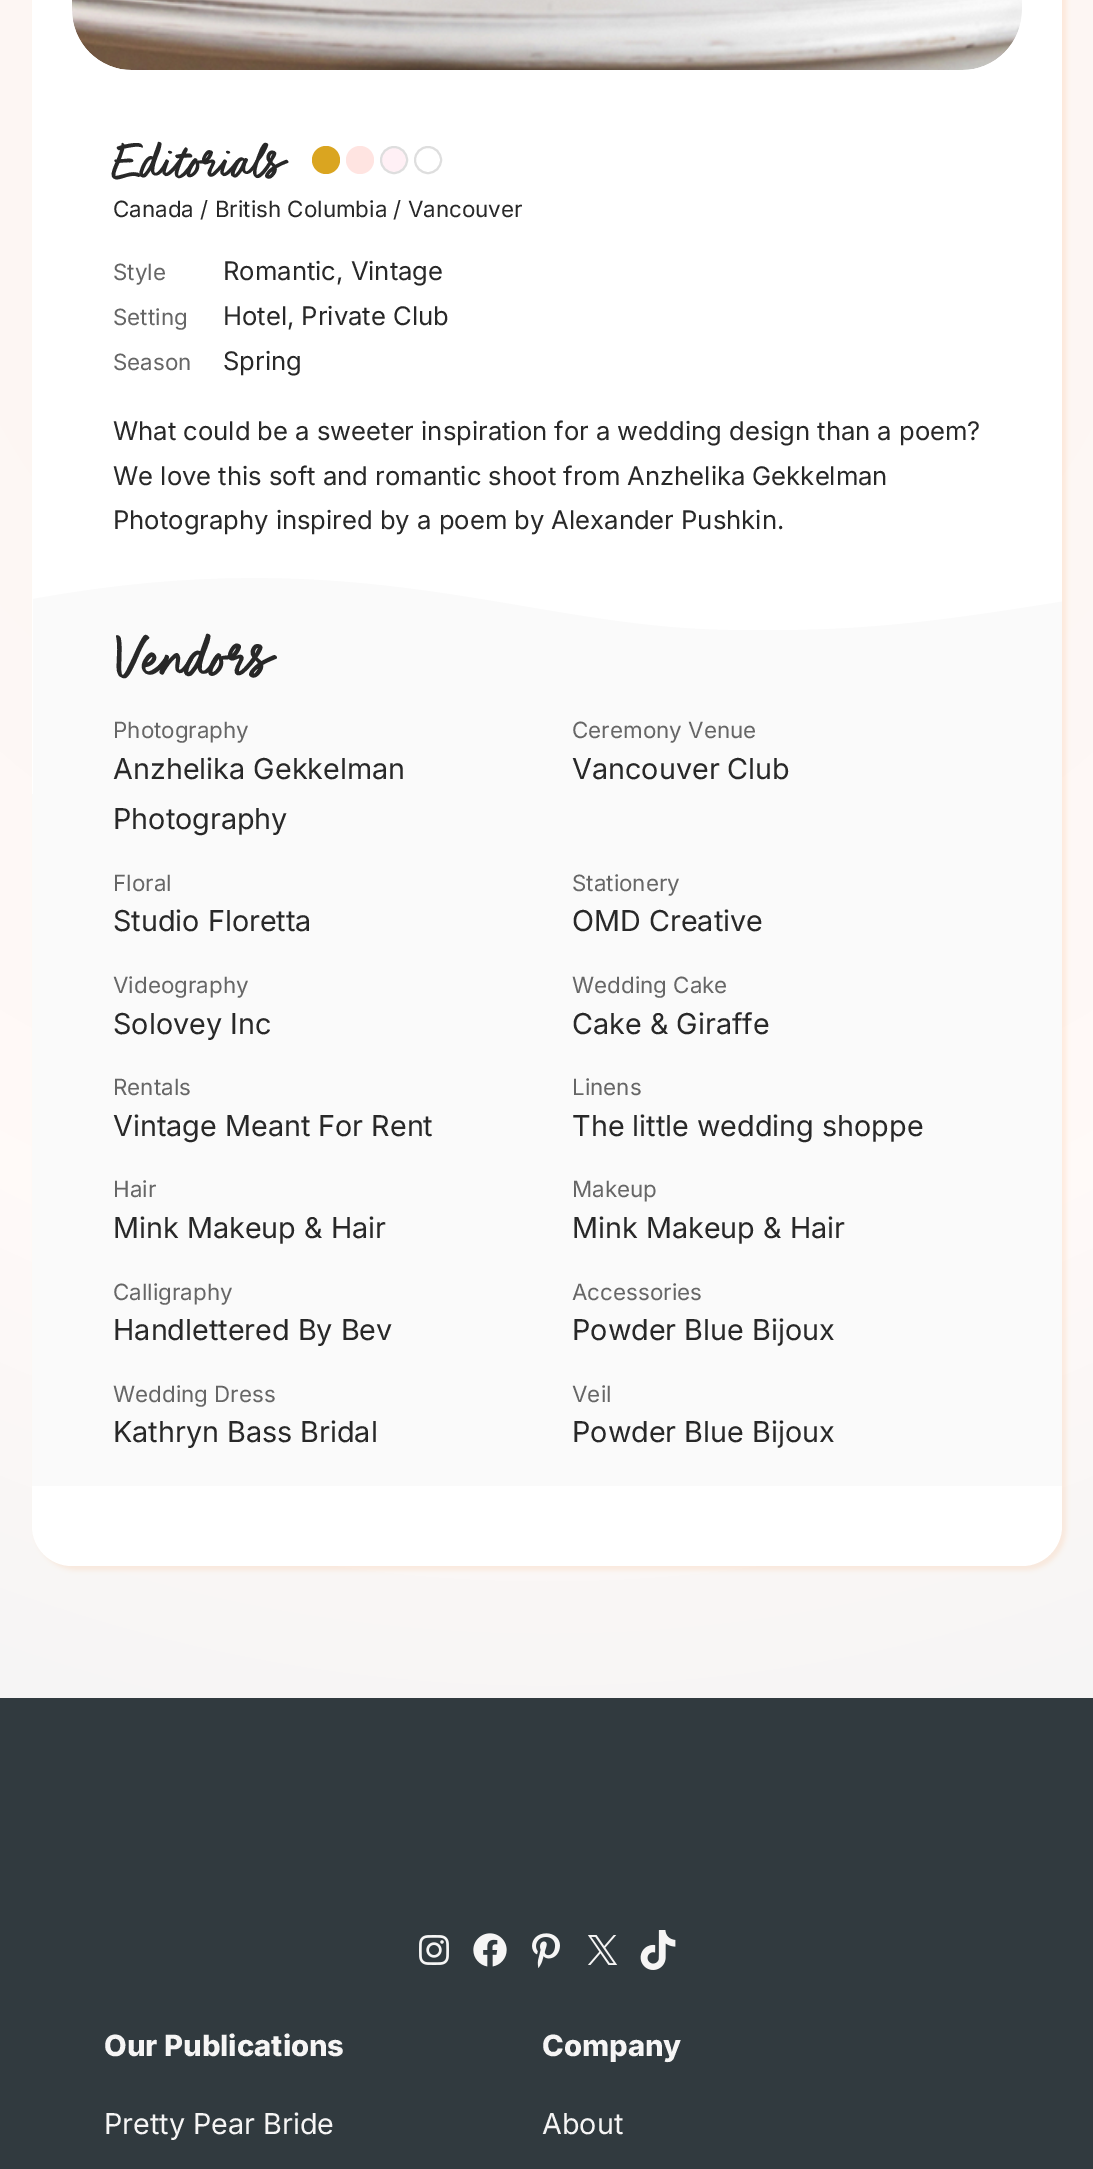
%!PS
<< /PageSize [1093 2169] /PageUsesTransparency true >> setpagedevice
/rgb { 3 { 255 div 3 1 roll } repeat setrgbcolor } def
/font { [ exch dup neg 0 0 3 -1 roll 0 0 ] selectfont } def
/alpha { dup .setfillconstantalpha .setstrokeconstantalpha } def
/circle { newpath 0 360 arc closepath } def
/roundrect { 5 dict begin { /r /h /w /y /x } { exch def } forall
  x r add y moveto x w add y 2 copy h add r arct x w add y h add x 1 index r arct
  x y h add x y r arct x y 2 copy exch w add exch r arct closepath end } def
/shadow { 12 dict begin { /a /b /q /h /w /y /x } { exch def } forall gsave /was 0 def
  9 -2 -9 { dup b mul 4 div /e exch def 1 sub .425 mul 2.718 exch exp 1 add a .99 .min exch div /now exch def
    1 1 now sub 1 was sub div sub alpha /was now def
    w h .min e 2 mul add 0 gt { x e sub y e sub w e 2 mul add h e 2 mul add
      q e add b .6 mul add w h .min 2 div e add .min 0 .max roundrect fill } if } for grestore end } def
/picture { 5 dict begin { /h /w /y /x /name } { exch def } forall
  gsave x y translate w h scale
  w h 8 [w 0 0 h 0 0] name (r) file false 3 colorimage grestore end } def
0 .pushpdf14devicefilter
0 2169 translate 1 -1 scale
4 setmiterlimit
255 255 255 rgb
0 0 1093 2169 rectfill
gsave 0 0 moveto 1093 0 lineto 1093 1698 lineto 0 1698 lineto closepath clip newpath 547 122 translate 1668 1668 scale
<< /ShadingType 3 /ColorSpace /DeviceRGB /Coords [0 0 0 0 0 1] /Extend [true true] /Function << /FunctionType 3 /Domain [0 1] /Functions [<< /FunctionType 2 /Domain [0 1] /C0 [1 0.922 0.878] /C1 [0.992 0.965 0.953] /N 1 >> << /FunctionType 2 /Domain [0 1] /C0 [0.992 0.965 0.953] /C1 [1 0.98 0.973] /N 1 >> << /FunctionType 2 /Domain [0 1] /C0 [1 0.98 0.973] /C1 [0.965 0.961 0.961] /N 1 >>] /Bounds [0.3 0.7] /Encode [0 1 0 1 0 1] >> >> shfill grestore
255 186 148 rgb
36 -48 1030 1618 40 2.5 0.25 shadow
255 255 255 rgb
32 -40 1030 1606 40 roundrect fill
(img/1.rgb) 72 0 950 70 picture
218 165 32 rgb
326 160 14 circle fill
255 228 225 rgb
360 160 14 circle fill
255 240 245 rgb
394 160 13 circle gsave fill grestore
222 222 222 rgb
2 setlinewidth
stroke
428 160 13 circle stroke
gsave
32 574 1030 912 rectclip
250 250 250 rgb
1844 1360 moveto 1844 1486 lineto 32 1486 lineto 32 794 lineto 33 794 lineto 33 599 lineto 362 539 523 627 728 630 curveto 756 630 lineto 983 634 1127 572 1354 574 curveto 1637 576 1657 615 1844 627 curveto 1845 870 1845 1115 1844 1360 curveto closepath fill
grestore
49 58 63 rgb
0 1698 1093 471 rectfill
(img/2.rgb) 419 1935 30 30 picture
(img/3.rgb) 473 1933 34 34 picture
(img/4.rgb) 532 1933 28 35 picture
(img/5.rgb) 588 1935 30 30 picture
(img/6.rgb) 640 1930 36 40 picture
/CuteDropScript-Regular 49.5 font
40 40 40 rgb
113 179 moveto (Editorials) show
/Inter-Regular 22.4 font
113 217 moveto (Canada / British Columbia / Vancouver) show
102 102 102 rgb
113 280 moveto (Style) show
/Inter-Regular 25.6 font
40 40 40 rgb
223 280 moveto (Romantic, Vintage) show
/Inter-Regular 22.4 font
102 102 102 rgb
113 325 moveto (Setting) show
/Inter-Regular 25.6 font
40 40 40 rgb
223 325 moveto (Hotel, Private Club) show
/Inter-Regular 22.4 font
102 102 102 rgb
113 370 moveto (Season) show
/Inter-Regular 25.6 font
40 40 40 rgb
[
  [(Spring) 223 370]
  [(What could be a sweeter inspiration for a wedding design than a poem?) 113 440]
  [(We love this soft and romantic shoot from Anzhelika Gekkelman) 113 485]
  [(Photography inspired by a poem by Alexander Pushkin.) 113 529]
] { aload pop moveto show } forall
/CuteDropScript-Regular 59 font
113 678 moveto (Vendors) show
/Inter-Regular 22.4 font
102 102 102 rgb
113 738 moveto (Photography) show
/Inter-Regular 28.75 font
40 40 40 rgb
113 779 moveto (Anzhelika Gekkelman) show
113 829 moveto (Photography) show
/Inter-Regular 22.4 font
102 102 102 rgb
572 738 moveto (Ceremony Venue) show
/Inter-Regular 28.75 font
40 40 40 rgb
572 779 moveto (Vancouver Club) show
/Inter-Regular 22.4 font
102 102 102 rgb
113 891 moveto (Floral) show
/Inter-Regular 28.75 font
40 40 40 rgb
113 931 moveto (Studio Floretta) show
/Inter-Regular 22.4 font
102 102 102 rgb
572 891 moveto (Stationery) show
/Inter-Regular 28.75 font
40 40 40 rgb
572 931 moveto (OMD Creative) show
/Inter-Regular 22.4 font
102 102 102 rgb
113 993 moveto (Videography) show
/Inter-Regular 28.75 font
40 40 40 rgb
113 1034 moveto (Solovey Inc) show
/Inter-Regular 22.4 font
102 102 102 rgb
572 993 moveto (Wedding Cake) show
/Inter-Regular 28.75 font
40 40 40 rgb
572 1034 moveto (Cake & Giraffe) show
/Inter-Regular 22.4 font
102 102 102 rgb
113 1095 moveto (Rentals) show
/Inter-Regular 28.75 font
40 40 40 rgb
113 1136 moveto (Vintage Meant For Rent) show
/Inter-Regular 22.4 font
102 102 102 rgb
572 1095 moveto (Linens) show
/Inter-Regular 28.75 font
40 40 40 rgb
572 1136 moveto (The little wedding shoppe) show
/Inter-Regular 22.4 font
102 102 102 rgb
113 1197 moveto (Hair) show
/Inter-Regular 28.75 font
40 40 40 rgb
113 1238 moveto (Mink Makeup & Hair) show
/Inter-Regular 22.4 font
102 102 102 rgb
572 1197 moveto (Makeup) show
/Inter-Regular 28.75 font
40 40 40 rgb
572 1238 moveto (Mink Makeup & Hair) show
/Inter-Regular 22.4 font
102 102 102 rgb
113 1300 moveto (Calligraphy) show
/Inter-Regular 28.75 font
40 40 40 rgb
113 1340 moveto (Handlettered By Bev) show
/Inter-Regular 22.4 font
102 102 102 rgb
572 1300 moveto (Accessories) show
/Inter-Regular 28.75 font
40 40 40 rgb
572 1340 moveto (Powder Blue Bijoux) show
/Inter-Regular 22.4 font
102 102 102 rgb
113 1402 moveto (Wedding Dress) show
/Inter-Regular 28.75 font
40 40 40 rgb
113 1442 moveto (Kathryn Bass Bridal) show
/Inter-Regular 22.4 font
102 102 102 rgb
572 1402 moveto (Veil) show
/Inter-Regular 28.75 font
40 40 40 rgb
572 1442 moveto (Powder Blue Bijoux) show
/Inter-ExtraBold 29.25 font
246 245 245 rgb
104 2056 moveto (Our Publications) show
/Inter-Regular 28.75 font
104 2134 moveto (Pretty Pear Bride) show
/Inter-ExtraBold 29.25 font
542 2056 moveto (Company) show
/Inter-Regular 28.75 font
542 2134 moveto (About) show
.poppdf14devicefilter showpage
